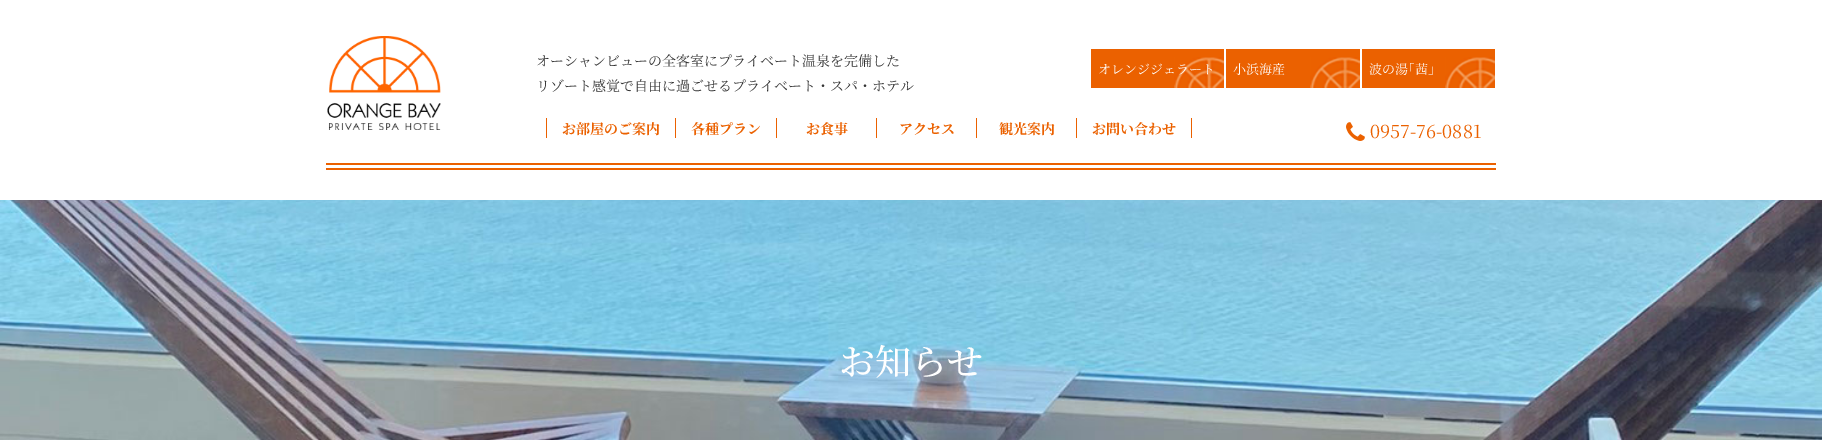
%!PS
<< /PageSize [1822 440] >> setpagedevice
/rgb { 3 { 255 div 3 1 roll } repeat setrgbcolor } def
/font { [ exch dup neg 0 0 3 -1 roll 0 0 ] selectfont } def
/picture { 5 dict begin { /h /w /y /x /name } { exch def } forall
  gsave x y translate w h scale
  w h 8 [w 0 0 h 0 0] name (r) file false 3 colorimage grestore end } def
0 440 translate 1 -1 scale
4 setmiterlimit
255 255 255 rgb
0 0 1822 440 rectfill
235 97 0 rgb
326 163 1170 2 rectfill
326 168 1170 2 rectfill
(img/1.rgb) 327 36 114 94 picture
1091 49 133 39 rectfill
(img/2.rgb) 1174 57 50 31 picture
1226 49 134 39 rectfill
(img/2.rgb) 1310 57 50 31 picture
1362 49 133 39 rectfill
(img/2.rgb) 1445 57 50 31 picture
[
  [675 118 1 20 235 97 0]
  [546 118 1 20 235 97 0]
  [776 118 1 20 235 97 0]
  [876 118 1 20 235 97 0]
  [976 118 1 20 235 97 0]
  [1076 118 1 20 235 97 0]
  [1191 118 1 20 235 97 0]
] { aload pop rgb rectfill } forall
(img/3.rgb) 1346 122 19 19 picture
(img/4.rgb) 0 200 1822 240 picture
/NotoSerifJP-Regular 14 font
51 51 51 rgb
536 66 moveto (オーシャンビューの全客室にプライベート温泉を完備した) show
536 91 moveto (リゾート感覚で自由に過ごせるプライベート・スパ・ホテル) show
/NotoSerifJP-Regular 13 font
255 255 255 rgb
[
  [(オレンジジェラート) 1098 74]
  [(小浜海産) 1233 74]
  [(波の湯｢茜｣) 1369 74]
] { aload pop moveto show } forall
/NotoSerifJP-Bold 14 font
235 97 0 rgb
[
  [(お部屋のご案内) 562 134]
  [(各種プラン) 691 134]
  [(お食事) 806 134]
  [(アクセス) 899 134]
  [(観光案内) 999 134]
  [(お問い合わせ) 1092 134]
] { aload pop moveto show } forall
/NotoSerifJP-Regular 18 font
1370 138 moveto (0957-76-0881) show
/NotoSerifJP-Medium 36 font
255 255 255 rgb
839 375 moveto (お知らせ) show
showpage
